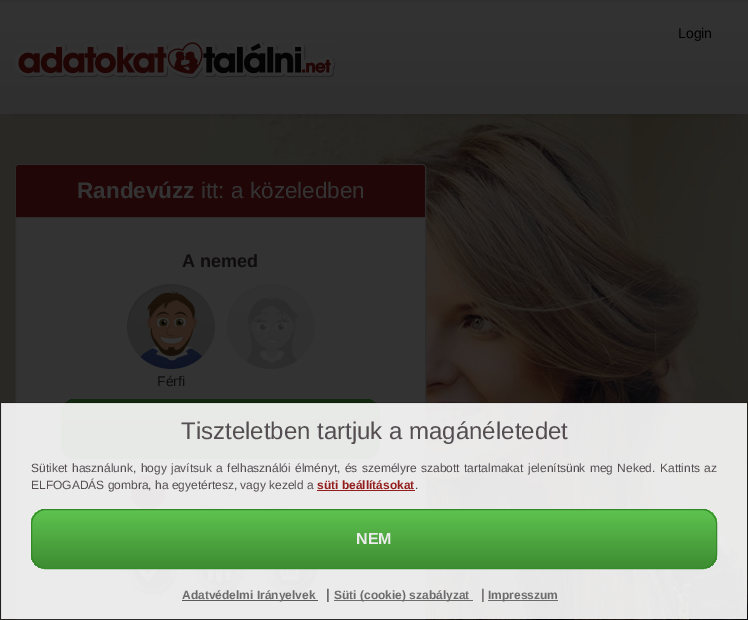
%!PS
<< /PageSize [748 620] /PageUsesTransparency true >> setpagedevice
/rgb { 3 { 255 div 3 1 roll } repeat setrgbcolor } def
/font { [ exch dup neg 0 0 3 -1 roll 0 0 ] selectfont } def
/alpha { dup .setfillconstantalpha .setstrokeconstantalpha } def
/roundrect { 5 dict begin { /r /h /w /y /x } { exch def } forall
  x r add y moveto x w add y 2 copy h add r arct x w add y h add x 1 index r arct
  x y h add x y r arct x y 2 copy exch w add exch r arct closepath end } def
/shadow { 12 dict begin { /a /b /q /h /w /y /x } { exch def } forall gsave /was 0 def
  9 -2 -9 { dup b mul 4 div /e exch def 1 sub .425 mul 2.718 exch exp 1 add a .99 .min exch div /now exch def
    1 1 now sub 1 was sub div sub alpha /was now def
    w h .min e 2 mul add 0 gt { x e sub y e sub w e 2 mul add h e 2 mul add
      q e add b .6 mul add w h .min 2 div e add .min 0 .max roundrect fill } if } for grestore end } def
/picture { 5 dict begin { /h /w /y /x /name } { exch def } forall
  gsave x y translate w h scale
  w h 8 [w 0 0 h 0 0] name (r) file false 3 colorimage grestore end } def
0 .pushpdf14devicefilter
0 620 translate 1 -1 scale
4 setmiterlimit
41 40 37 rgb
0 0 748 620 rectfill
(img/2.rgb) 182 114 566 506 picture
14 12 13 rgb
17 28 714 80 0 5 1 shadow
gsave 0 3 moveto 748 3 lineto 748 114 lineto 0 114 lineto closepath clip newpath
<< /ShadingType 2 /ColorSpace /DeviceRGB /Coords [374 3 374 114] /Extend [true true] /Function << /FunctionType 2 /Domain [0 1] /C0 [0.2 0.2 0.2] /C1 [0.184 0.184 0.184] /N 1 >> >> shfill grestore
48 48 48 rgb
0 0 748 3 rectfill
(img/1.rgb) 15 39 320 39 picture
51 51 51 rgb
15.5 164.5 410 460 3.5 roundrect gsave fill grestore
44 44 44 rgb
stroke
32 6 6 rgb
19 165 moveto 422 165 lineto 423.5 165 425 166.5 425 168 curveto 425 218 lineto 16 218 lineto 16 168 lineto 16 166.5 17.5 165 19 165 curveto closepath fill
44 44 44 rgb
16 217 409 1 rectfill
(img/3.rgb) 227 284 88 85 picture
(img/4.rgb) 127 284 88 85 picture
gsave 61 399 319 60 15 roundrect clip newpath
<< /ShadingType 2 /ColorSpace /DeviceRGB /Coords [221 399 221 459] /Extend [true true] /Function << /FunctionType 2 /Domain [0 1] /C0 [0.075 0.157 0.063] /C1 [0.047 0.11 0.039] /N 1 >> >> shfill grestore
32 6 6 rgb
131.5 475.5 33 33 15.5 roundrect gsave fill grestore
stroke
41 41 41 rgb
196.5 475.5 33 33 15.5 roundrect stroke
262.5 475.5 32 33 15.5 roundrect stroke
(img/5.rgb) 125 543 53 52 picture
(img/6.rgb) 194 542 51 53 picture
(img/7.rgb) 264 542 53 53 picture
0.9 alpha
255 255 255 rgb
1 403 746 216 rectfill
0.18 alpha
0 0 0 rgb
0.5 402.5 747 217 rectstroke
1 alpha
147 29 29 rgb
317 490 98 1 rectfill
0.9 alpha
60 139 48 rgb
31 509 686 60 15 roundrect fill
gsave
31 509 686 60 15 roundrect clip newpath
gsave 41 509 moveto 707 509 lineto 707 510 lineto 41 510 lineto closepath clip newpath
<< /ShadingType 2 /ColorSpace /DeviceRGB /Coords [374 452 374 510] /Extend [true true] /Function << /FunctionType 2 /Domain [0 1] /C0 [0.376 0.784 0.318] /C1 [0.235 0.545 0.188] /N 1 >> >> shfill grestore
gsave 31 510 moveto 717 510 lineto 717 568 lineto 31 568 lineto closepath clip newpath
<< /ShadingType 2 /ColorSpace /DeviceRGB /Coords [374 510 374 568] /Extend [true true] /Function << /FunctionType 2 /Domain [0 1] /C0 [0.376 0.784 0.318] /C1 [0.235 0.545 0.188] /N 1 >> >> shfill grestore
gsave 41 568 moveto 707 568 lineto 707 569 lineto 41 569 lineto closepath clip newpath
<< /ShadingType 2 /ColorSpace /DeviceRGB /Coords [374 568 374 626] /Extend [true true] /Function << /FunctionType 2 /Domain [0 1] /C0 [0.376 0.784 0.318] /C1 [0.235 0.545 0.188] /N 1 >> >> shfill grestore
grestore
50 134 37 rgb
31.5 509.5 685 59 14.5 roundrect stroke
1 alpha
[
  [182 600 136 1 90 90 90]
] { aload pop rgb rectfill } forall
0.9 alpha
[
  [334 600 139 1 94 94 94]
  [488 600 70 1 94 94 94]
] { aload pop rgb rectfill } forall
/LiberationSans-Regular 14 font
1 alpha
0 0 0 rgb
678 38 moveto (Login) show
/LiberationSans-Bold 22.5 font
51 51 51 rgb
77 198 moveto (Randevúzz) show
/LiberationSans-Regular 22.5 font
201 198 moveto (itt: a közeledben) show
/LiberationSans-Bold 18 font
14 12 13 rgb
182 267 moveto (A nemed) show
/LiberationSans-Regular 14 font
157 386 moveto (Férfi) show
/LiberationSans-Regular 24 font
84 77 81 rgb
181 439 moveto (Tiszteletben tartjuk a magánéletedet) show
/LiberationSans-Regular 12 font
31 472 moveto 1.1 0 32 (Sütiket használunk, hogy javítsuk a felhasználói élményt, és személyre szabott tartalmakat jelenítsünk meg Neked. Kattints az) widthshow
31 489 moveto (ELFOGADÁS gombra, ha egyetértesz, vagy kezeld a) show
/LiberationSans-Bold 12 font
147 29 29 rgb
317 489 moveto (süti beállításokat) show
/LiberationSans-Regular 12 font
65 59 63 rgb
415 489 moveto (.) show
/LiberationSans-Bold 16 font
235 235 235 rgb
356 544 moveto (NEM) show
/LiberationSans-Bold 12 font
108 108 108 rgb
182 599 moveto (Adatvédelmi Irányelvek) show
/LiberationSans-Regular 14 font
65 59 63 rgb
326 599 moveto (|) show
/LiberationSans-Bold 12 font
108 108 108 rgb
334 599 moveto (Süti \(cookie\) szabályzat) show
/LiberationSans-Regular 14 font
84 77 81 rgb
481 599 moveto (|) show
/LiberationSans-Bold 12 font
108 108 108 rgb
488 599 moveto (Impresszum) show
.poppdf14devicefilter showpage
